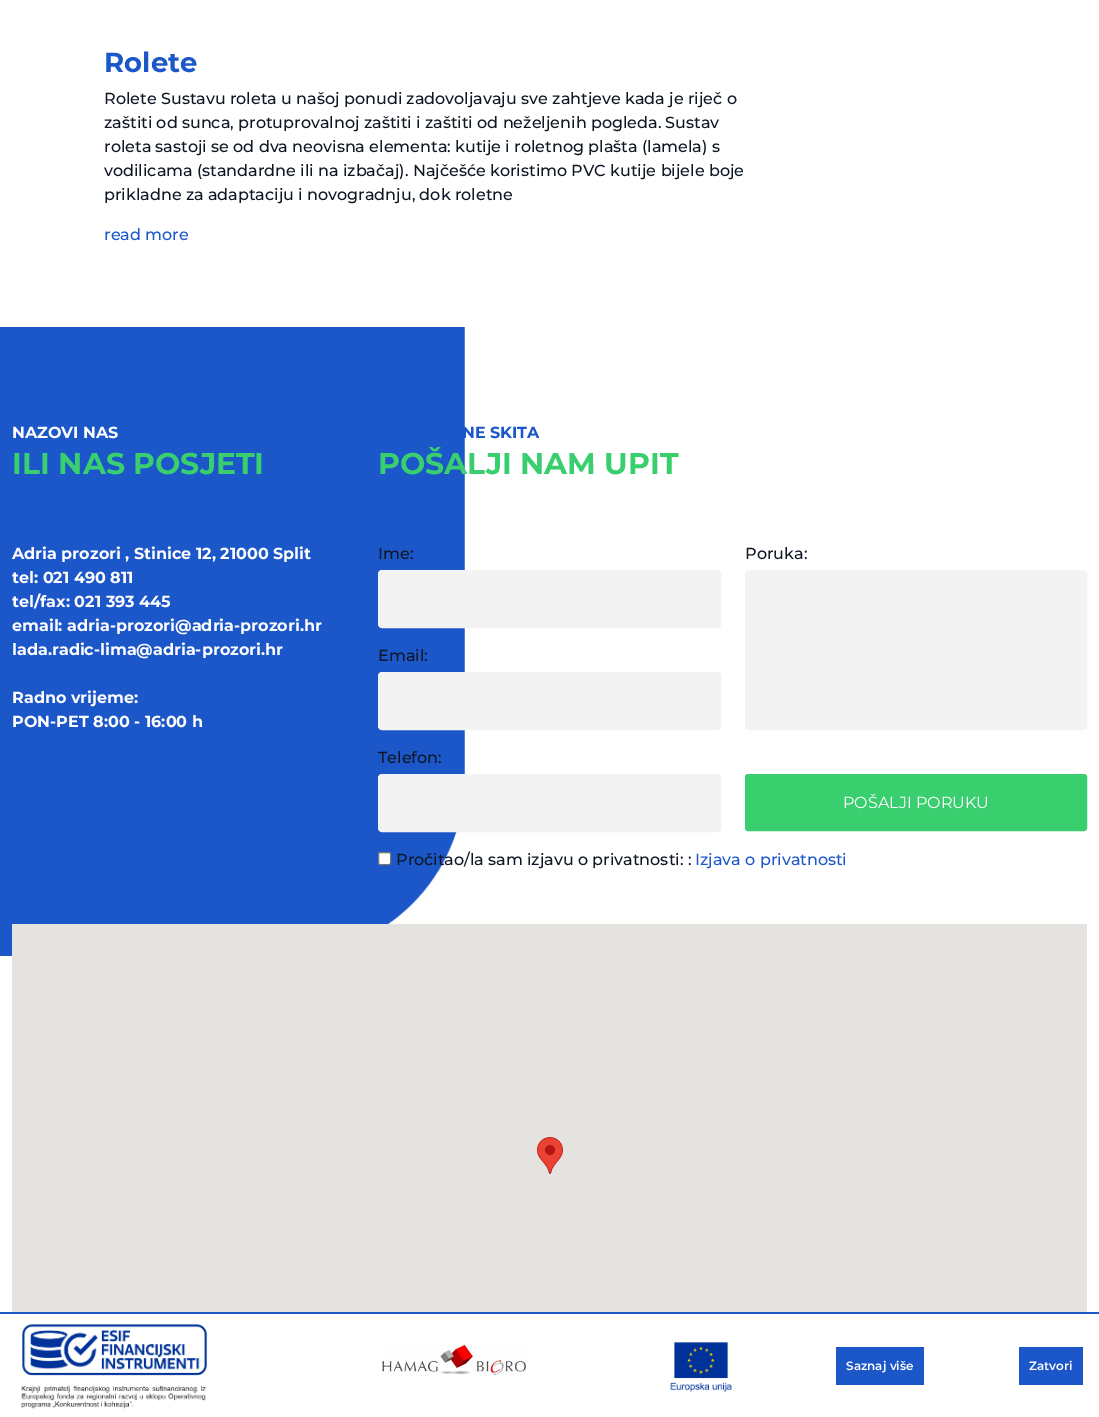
%!PS
<< /PageSize [1099 1417] >> setpagedevice
/rgb { 3 { 255 div 3 1 roll } repeat setrgbcolor } def
/font { [ exch dup neg 0 0 3 -1 roll 0 0 ] selectfont } def
/roundrect { 5 dict begin { /r /h /w /y /x } { exch def } forall
  x r add y moveto x w add y 2 copy h add r arct x w add y h add x 1 index r arct
  x y h add x y r arct x y 2 copy exch w add exch r arct closepath end } def
/picture { 5 dict begin { /h /w /y /x /name } { exch def } forall
  gsave x y translate w h scale
  w h 8 [w 0 0 h 0 0] name (r) file false 3 colorimage grestore end } def
0 1417 translate 1 -1 scale
4 setmiterlimit
255 255 255 rgb
0 0 1099 1417 rectfill
(img/1.rgb) 0 327 465 629 picture
243 243 243 rgb
378.5 570.5 342 57 3.5 roundrect gsave fill grestore
stroke
378.5 672.5 342 57 3.5 roundrect gsave fill grestore
stroke
745.5 570.5 341 159 3.5 roundrect gsave fill grestore
stroke
378.5 774.5 342 57 3.5 roundrect gsave fill grestore
stroke
58 207 110 rgb
745.5 774.5 341 56 2.5 roundrect gsave fill grestore
stroke
255 255 255 rgb
378.5 852.5 12 12 1.5 roundrect gsave fill grestore
118 118 118 rgb
stroke
229 227 223 rgb
12 924 1075 388 rectfill
(img/2.rgb) 537 1137 26 37 picture
28 87 201 rgb
0 1312 1099 2 rectfill
(img/3.rgb) 21 1324 187 85 picture
(img/4.rgb) 382 1343 144 32 picture
(img/5.rgb) 670 1342 62 50 picture
836 1347 88 38 rectfill
1019 1347 64 38 rectfill
/Montserrat-Bold 27.5 font
104 72 moveto (Rolete) show
/Montserrat-Medium 16 font
14 22 36 rgb
[
  [(Rolete Sustavu roleta u našoj ponudi zadovoljavaju sve zahtjeve kada je riječ o) 104 104]
  [(zaštiti od sunca, protuprovalnoj zaštiti i zaštiti od neželjenih pogleda. Sustav) 104 128]
  [(roleta sastoji se od dva neovisna elementa: kutije i roletnog plašta \(lamela\) s) 104 152]
  [(vodilicama \(standardne ili na izbačaj\). Najčešće koristimo PVC kutije bijele boje) 104 176]
  [(prikladne za adaptaciju i novogradnju, dok roletne) 104 200]
] { aload pop moveto show } forall
28 87 201 rgb
104 240 moveto (read more) show
/Montserrat-Bold 16 font
255 255 255 rgb
12 438 moveto (NAZOVI NAS) show
/Montserrat-Bold 30 font
58 207 110 rgb
12 474 moveto (ILI NAS POSJETI) show
/Montserrat-Bold 16 font
255 255 255 rgb
[
  [(Adria prozori , Stinice 12, 21000 Split) 12 559]
  [(tel: 021 490 811) 12 583]
  [(tel/fax: 021 393 445) 12 607]
  [(email: adria-prozori@adria-prozori.hr) 12 631]
  [(lada.radic-lima@adria-prozori.hr) 12 655]
  [(Radno vrijeme:) 12 703]
  [(PON-PET 8:00 - 16:00 h) 12 727]
] { aload pop moveto show } forall
28 87 201 rgb
462 438 moveto (NE SKITA) show
/Montserrat-Bold 30 font
58 207 110 rgb
378 474 moveto (POŠALJI NAM UPIT) show
/Montserrat-Medium 16 font
14 22 36 rgb
[
  [(Ime:) 378 559]
  [(Email:) 378 661]
  [(Poruka:) 745 559]
  [(Telefon:) 378 763]
] { aload pop moveto show } forall
/Montserrat-Regular 16 font
255 255 255 rgb
843 808 moveto (POŠALJI PORUKU) show
/Montserrat-Medium 16 font
14 22 36 rgb
396 865 moveto (Pročitao/la sam izjavu o privatnosti: :) show
28 87 201 rgb
695 865 moveto (Izjava o privatnosti) show
/Montserrat-SemiBold 12 font
255 255 255 rgb
846 1370 moveto (Saznaj više) show
1029 1370 moveto (Zatvori) show
showpage
